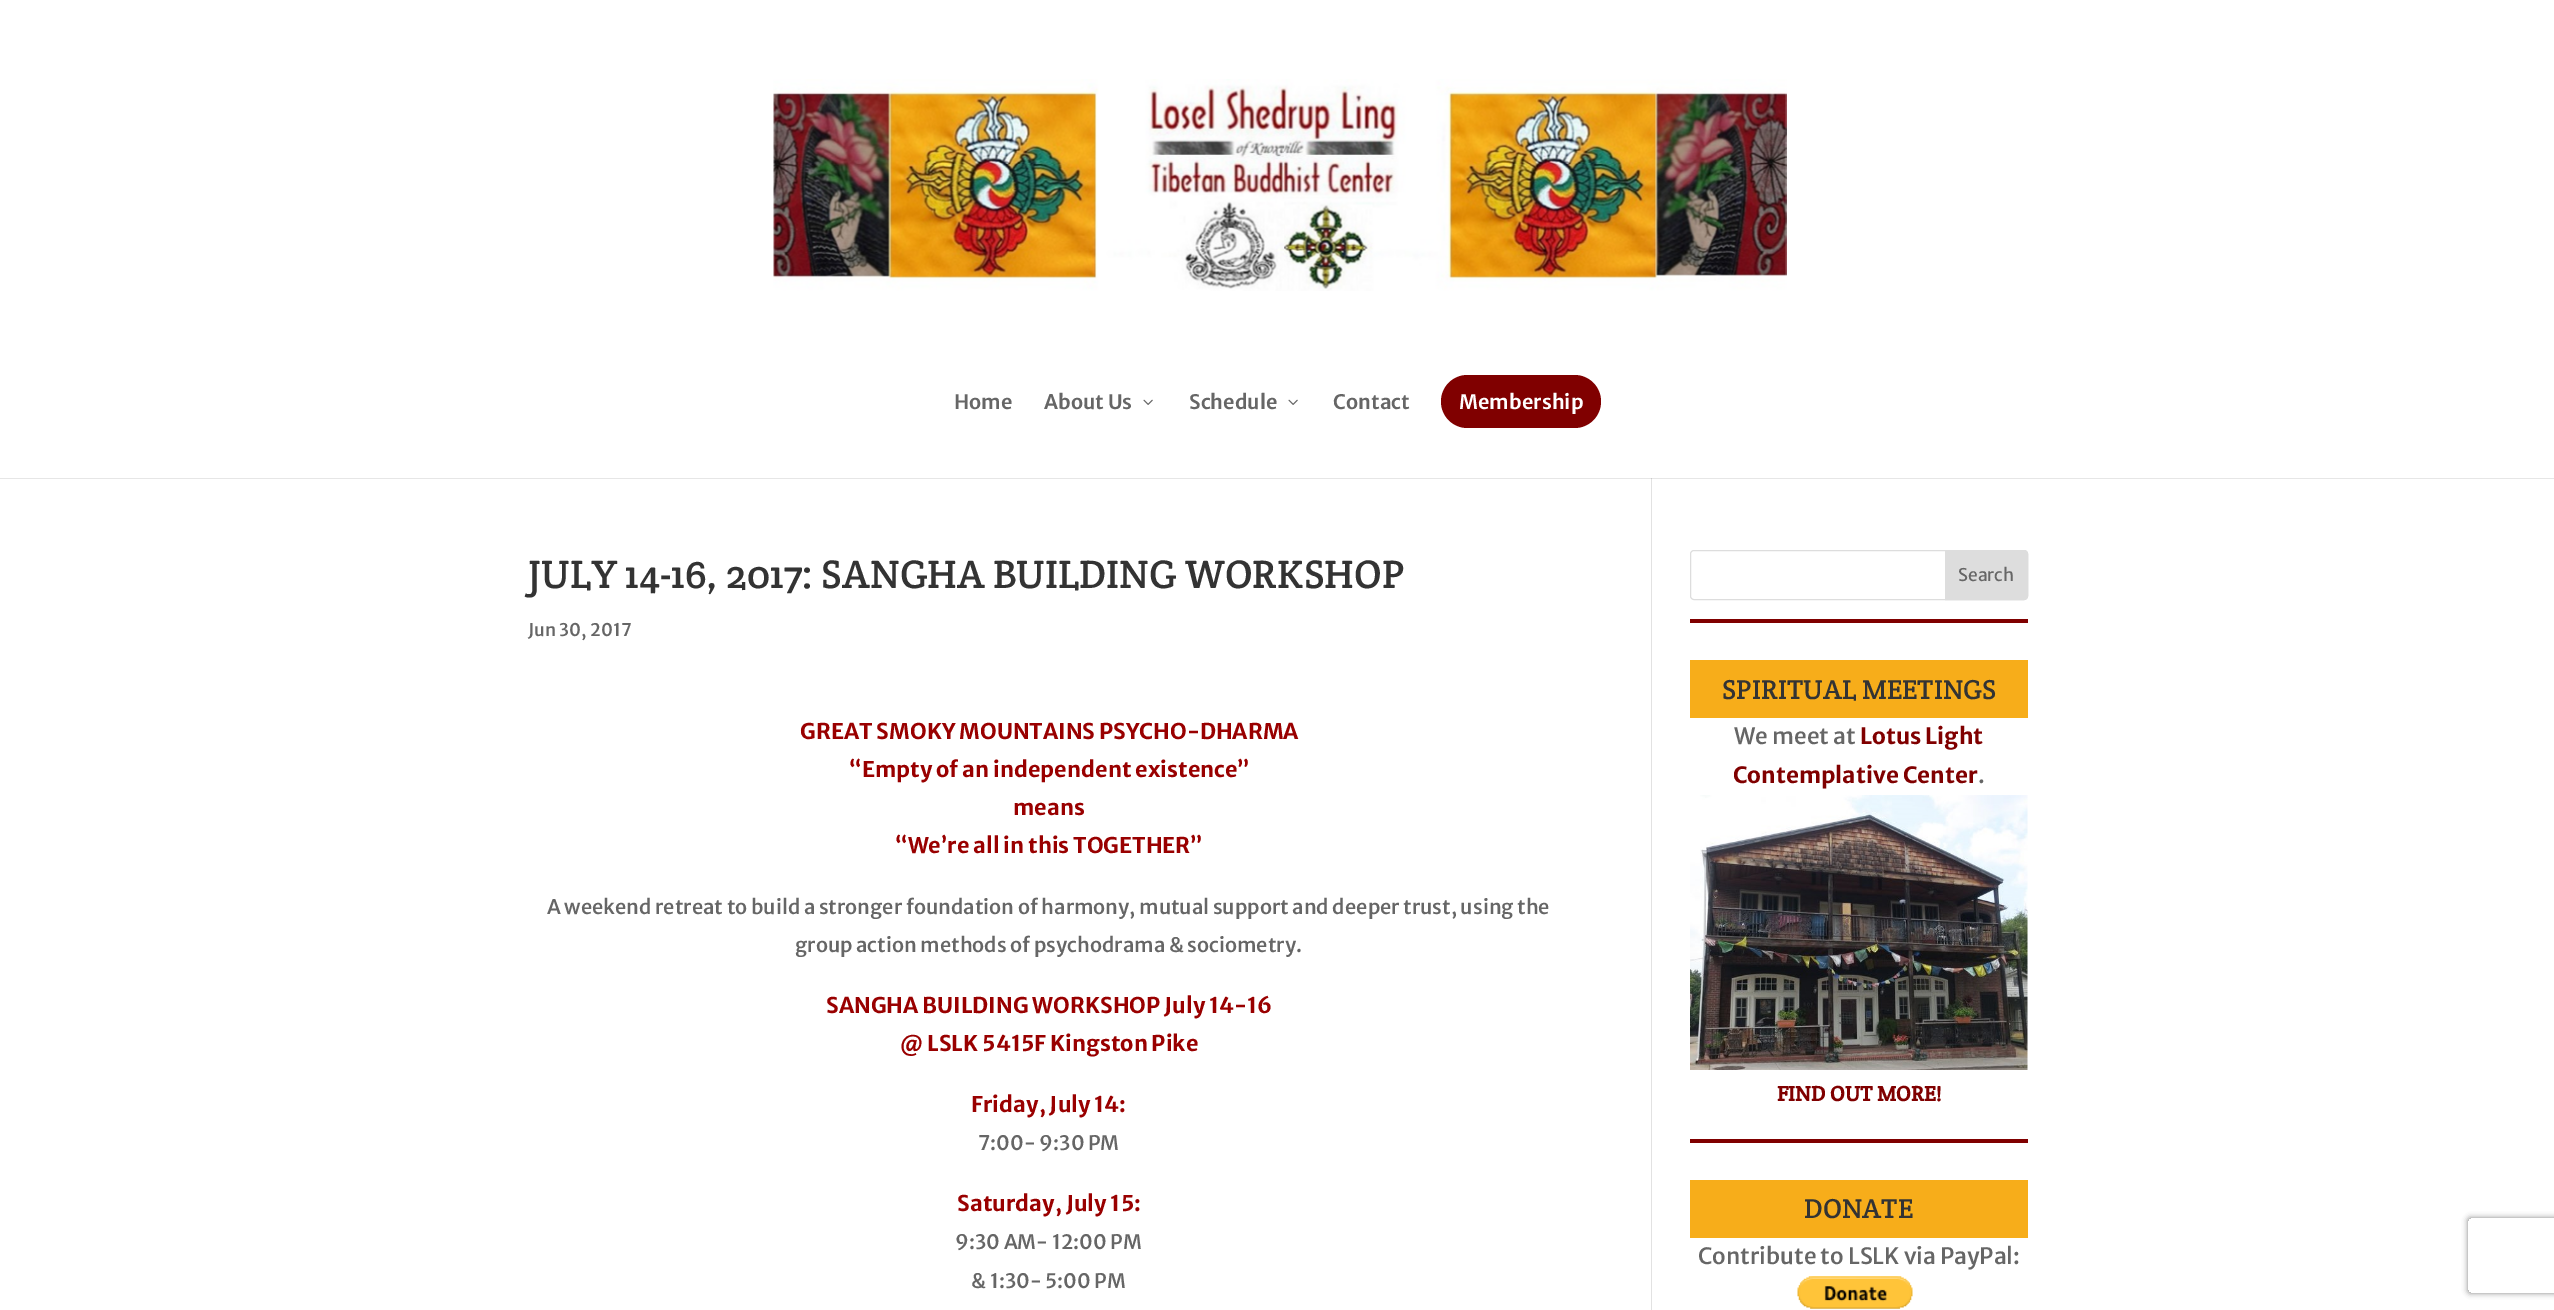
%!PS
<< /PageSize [2554 1310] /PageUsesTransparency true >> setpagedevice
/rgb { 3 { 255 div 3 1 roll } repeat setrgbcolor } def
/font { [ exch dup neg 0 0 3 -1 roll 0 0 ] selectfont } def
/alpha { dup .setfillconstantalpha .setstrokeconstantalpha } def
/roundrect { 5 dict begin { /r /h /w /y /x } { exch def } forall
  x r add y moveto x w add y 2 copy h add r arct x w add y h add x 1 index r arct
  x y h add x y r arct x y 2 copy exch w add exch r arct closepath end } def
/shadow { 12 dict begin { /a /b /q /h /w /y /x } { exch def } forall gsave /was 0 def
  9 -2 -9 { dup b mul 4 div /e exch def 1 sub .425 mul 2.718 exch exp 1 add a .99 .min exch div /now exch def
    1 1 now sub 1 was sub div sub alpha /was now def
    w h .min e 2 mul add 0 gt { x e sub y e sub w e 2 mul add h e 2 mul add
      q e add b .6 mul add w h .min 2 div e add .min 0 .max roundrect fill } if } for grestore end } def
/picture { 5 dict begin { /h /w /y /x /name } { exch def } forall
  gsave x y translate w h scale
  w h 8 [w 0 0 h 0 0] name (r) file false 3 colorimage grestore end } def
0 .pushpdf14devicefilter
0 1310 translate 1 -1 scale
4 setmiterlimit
255 255 255 rgb
0 0 2554 1310 rectfill
230 230 230 rgb
0 478 2554 1 rectfill
(img/1.rgb) 773 79 1014 212 picture
(img/2.rgb) 1143 399 10 6 picture
(img/2.rgb) 1288 399 10 6 picture
128 0 0 rgb
1441 375 160 53 26.5 roundrect fill
[
  [1651 478 1 832 226 226 226]
  [1651 478 1 1 203 203 203]
  [1690 619 338 4 128 0 0]
] { aload pop rgb rectfill } forall
221 221 221 rgb
1690.5 550.5 337 49 3.5 roundrect stroke
1945.5 550.5 moveto 2024 550.5 lineto 2026 550.5 2027.5 552 2027.5 554 curveto 2027.5 596 lineto 2027.5 598 2026 599.5 2024 599.5 curveto 1945.5 599.5 lineto closepath gsave fill grestore
stroke
128 0 0 rgb
1690 1139 338 4 rectfill
247 173 26 rgb
1690 660 338 58 rectfill
(img/3.rgb) 1690 795 338 275 picture
1690 1180 338 58 rectfill
(img/4.rgb) 1797 1276 116 33 picture
gsave
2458 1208 moveto 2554 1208 lineto 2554 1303 lineto 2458 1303 lineto closepath 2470.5 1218 moveto 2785.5 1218 lineto 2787 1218 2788 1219 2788 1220.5 curveto 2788 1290.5 lineto 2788 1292 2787 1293 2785.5 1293 curveto 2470.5 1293 lineto 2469 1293 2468 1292 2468 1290.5 curveto 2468 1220.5 lineto 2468 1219 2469 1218 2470.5 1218 curveto closepath eoclip newpath
128 128 128 rgb
2468 1218 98 75 2.5 3 1 shadow
grestore
/MerriweatherSans-SemiBold 20 font
102 102 102 rgb
[
  [(Home) 954 409]
  [(About Us) 1044 409]
  [(Schedule) 1189 409]
  [(Contact) 1333 409]
] { aload pop moveto show } forall
255 255 255 rgb
1459 409 moveto (Membership) show
/CreteRound-Regular 40 font
51 51 51 rgb
528 588 moveto (JULY 14-16, 2017: SANGHA BUILDING WORKSHOP) show
/MerriweatherSans-Medium 17.5 font
102 102 102 rgb
528 636 moveto (Jun 30, 2017) show
/MerriweatherSans-Bold 21.7 font
153 0 0 rgb
[
  [(GREAT SMOKY MOUNTAINS PSYCHO-DHARMA) 800 739]
  [(“Empty of an independent existence”) 849 777]
  [(means) 1013 815]
  [(“We’re all in this TOGETHER”) 895 853]
] { aload pop moveto show } forall
/MerriweatherSans-Medium 20 font
102 102 102 rgb
547 914 moveto (A weekend retreat to build a stronger foundation of harmony, mutual support and deeper trust, using the) show
795 952 moveto (group action methods of psychodrama & sociometry.) show
/MerriweatherSans-Bold 21.7 font
153 0 0 rgb
[
  [(SANGHA BUILDING WORKSHOP July 14-16) 826 1013]
  [(@ LSLK 5415F Kingston Pike) 900 1051]
  [(Friday, July 14:) 971 1112]
] { aload pop moveto show } forall
/MerriweatherSans-Medium 20 font
102 102 102 rgb
978 1150 moveto (7:00- 9:30 PM) show
/MerriweatherSans-Bold 21.7 font
153 0 0 rgb
957 1211 moveto (Saturday, July 15:) show
/MerriweatherSans-Medium 20 font
102 102 102 rgb
955 1249 moveto (9:30 AM- 12:00 PM) show
971 1288 moveto (& 1:30- 5:00 PM) show
/MerriweatherSans-Regular 17.5 font
1958 581 moveto (Search) show
/CreteRound-Regular 27.5 font
51 51 51 rgb
1722 699 moveto (SPIRITUAL MEETINGS) show
/MerriweatherSans-Medium 22.5 font
102 102 102 rgb
1734 744 moveto (We meet at) show
/MerriweatherSans-Bold 22.5 font
128 0 0 rgb
1860 744 moveto (Lotus Light) show
1733 783 moveto (Contemplative Center) show
/MerriweatherSans-Medium 22.5 font
102 102 102 rgb
1978 783 moveto (.) show
/CreteRound-Bold 21.25 font
128 0 0 rgb
1777 1101 moveto (FIND OUT MORE!) show
/CreteRound-Regular 27.5 font
51 51 51 rgb
1804 1218 moveto (DONATE) show
/MerriweatherSans-Medium 22.5 font
102 102 102 rgb
1698 1264 moveto (Contribute to LSLK via PayPal:) show
.poppdf14devicefilter showpage
